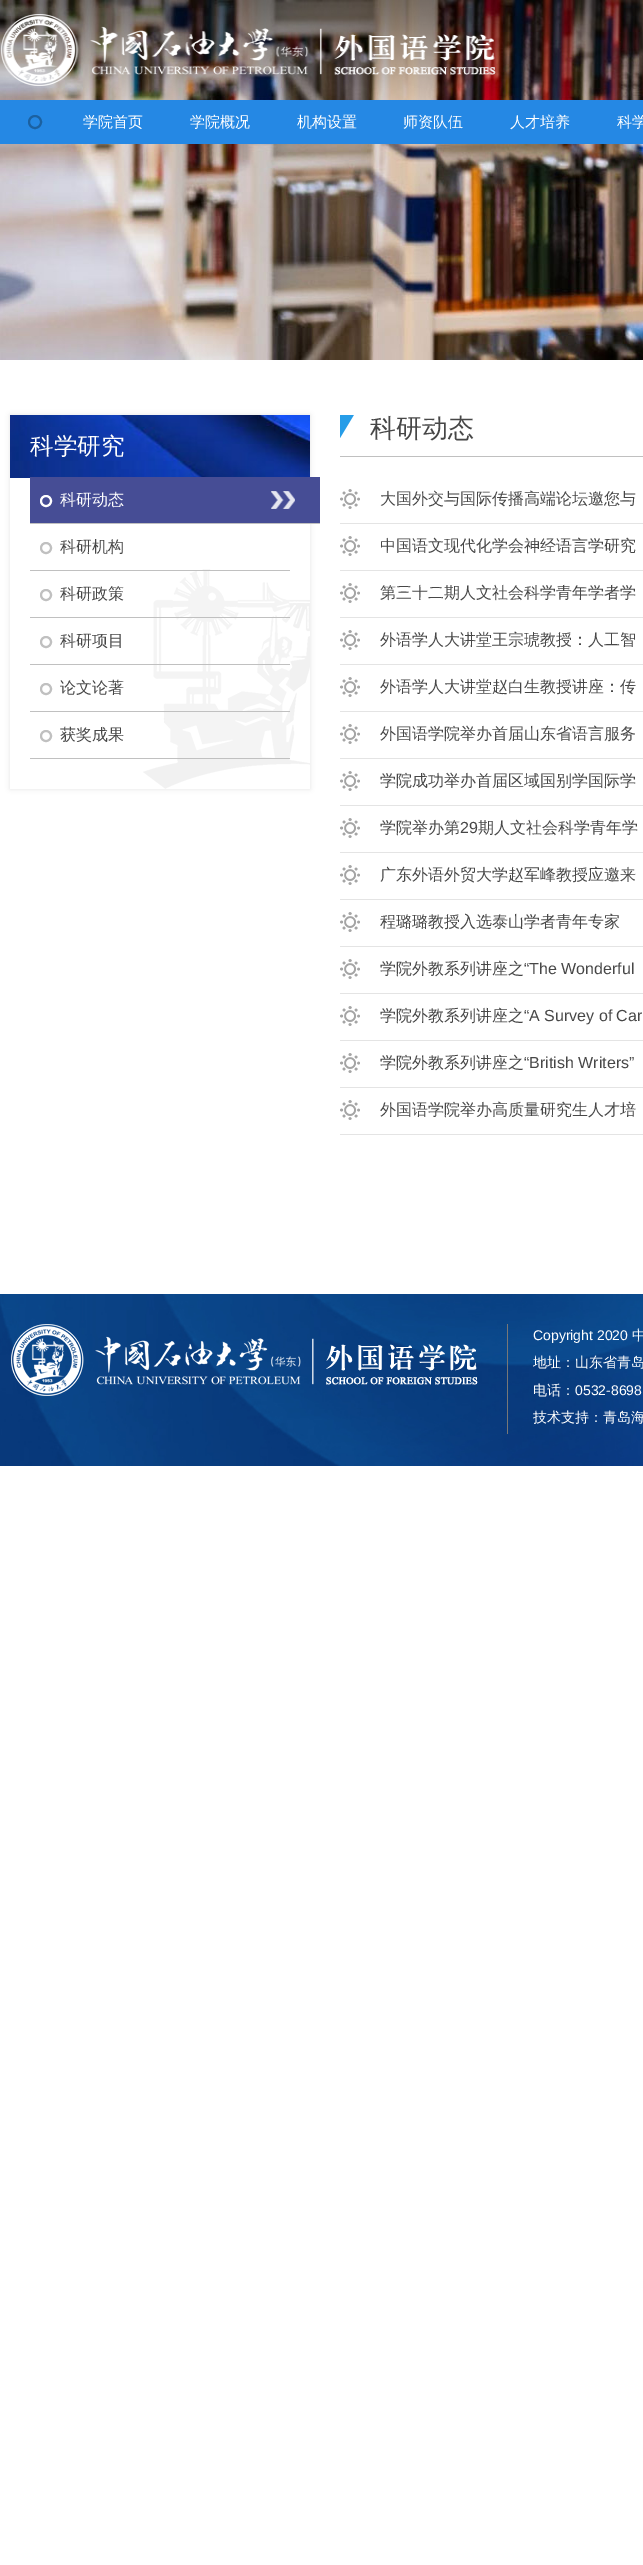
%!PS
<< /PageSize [643 2565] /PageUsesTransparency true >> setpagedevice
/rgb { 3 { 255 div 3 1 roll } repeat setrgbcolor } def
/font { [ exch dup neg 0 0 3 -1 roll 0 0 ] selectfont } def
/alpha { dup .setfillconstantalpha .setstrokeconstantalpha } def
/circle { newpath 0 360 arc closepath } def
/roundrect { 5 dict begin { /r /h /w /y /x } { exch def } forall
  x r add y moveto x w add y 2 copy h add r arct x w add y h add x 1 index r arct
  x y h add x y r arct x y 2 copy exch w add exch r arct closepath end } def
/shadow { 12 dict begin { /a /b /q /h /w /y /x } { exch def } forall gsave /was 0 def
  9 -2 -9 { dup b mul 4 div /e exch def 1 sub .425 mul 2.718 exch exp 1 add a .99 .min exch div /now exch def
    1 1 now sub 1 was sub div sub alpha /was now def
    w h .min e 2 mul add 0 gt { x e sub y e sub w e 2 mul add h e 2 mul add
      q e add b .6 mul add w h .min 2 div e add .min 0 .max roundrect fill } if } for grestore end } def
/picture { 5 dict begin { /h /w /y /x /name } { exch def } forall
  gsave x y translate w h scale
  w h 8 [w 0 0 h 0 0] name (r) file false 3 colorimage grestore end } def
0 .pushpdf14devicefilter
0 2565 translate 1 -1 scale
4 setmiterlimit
255 255 255 rgb
0 0 643 2565 rectfill
(img/1.rgb) 0 0 643 360 picture
(img/2.rgb) 0 0 643 100 picture
(img/3.rgb) 1 14 495 72 picture
37 136 228 rgb
0 100 643 44 rectfill
27 97 161 rgb
2 setlinewidth
35 122 6 circle stroke
gsave
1 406 moveto 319 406 lineto 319 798 lineto 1 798 lineto closepath 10 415 moveto 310 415 lineto 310 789 lineto 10 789 lineto closepath eoclip newpath
0 0 0 rgb
10 415 300 374 0 2.5 0.1 shadow
grestore
(img/4.rgb) 143 569 167 220 picture
(img/5.rgb) 10 415 300 63 picture
70 77 149 rgb
30 477 290 46 rectfill
255 255 255 rgb
46 501 5 circle stroke
192 192 192 rgb
30 523 290 1 rectfill
(img/6.rgb) 271 491 24 18 picture
46 548 5 circle stroke
30 570 260 1 rectfill
0.2 alpha
255 255 255 rgb
154 571 136 46 rectfill
1 alpha
192 192 192 rgb
46 595 5 circle stroke
30 617 260 1 rectfill
0.2 alpha
255 255 255 rgb
154 618 136 46 rectfill
1 alpha
192 192 192 rgb
46 642 5 circle stroke
30 664 260 1 rectfill
0.2 alpha
255 255 255 rgb
154 665 136 46 rectfill
1 alpha
192 192 192 rgb
46 689 5 circle stroke
30 711 260 1 rectfill
0.2 alpha
255 255 255 rgb
165 712 125 46 rectfill
1 alpha
192 192 192 rgb
46 736 5 circle stroke
30 758 260 1 rectfill
(img/7.rgb) 340 415 14 23 picture
340 456 303 1 rectfill
228 228 228 rgb
340 523 303 1 rectfill
(img/8.rgb) 340 489 20 20 picture
340 570 303 1 rectfill
(img/8.rgb) 340 536 20 20 picture
340 617 303 1 rectfill
(img/8.rgb) 340 583 20 20 picture
340 664 303 1 rectfill
(img/8.rgb) 340 630 20 20 picture
340 711 303 1 rectfill
(img/8.rgb) 340 677 20 20 picture
340 758 303 1 rectfill
(img/8.rgb) 340 724 20 20 picture
340 805 303 1 rectfill
(img/8.rgb) 340 771 20 20 picture
340 852 303 1 rectfill
(img/8.rgb) 340 818 20 20 picture
340 899 303 1 rectfill
(img/8.rgb) 340 865 20 20 picture
340 946 303 1 rectfill
(img/8.rgb) 340 912 20 20 picture
340 993 303 1 rectfill
(img/8.rgb) 340 959 20 20 picture
340 1040 303 1 rectfill
(img/8.rgb) 340 1006 20 20 picture
340 1087 303 1 rectfill
(img/8.rgb) 340 1053 20 20 picture
340 1134 303 1 rectfill
(img/8.rgb) 340 1100 20 20 picture
(img/9.rgb) 0 1294 643 172 picture
(img/10.rgb) 11 1324 467 72 picture
119 119 119 rgb
507 1324 1 110 rectfill
/WenQuanYiZenHei-Medium 15 font
255 255 255 rgb
[
  [(学院首页) 83 127]
  [(学院概况) 190 127]
  [(机构设置) 297 127]
  [(师资队伍) 403 127]
  [(人才培养) 510 127]
  [(科学) 617 127]
] { aload pop moveto show } forall
/WenQuanYiZenHei-Medium 23.5 font
30 454 moveto (科学研究) show
/WenQuanYiZenHei-Medium 16 font
60 505 moveto (科研动态) show
71 71 71 rgb
[
  [(科研机构) 60 552]
  [(科研政策) 60 599]
  [(科研项目) 60 646]
  [(论文论著) 60 693]
  [(获奖成果) 60 740]
] { aload pop moveto show } forall
/WenQuanYiZenHei-Medium 26 font
370 437 moveto (科研动态) show
/WenQuanYiZenHei-Medium 16 font
[
  [(大国外交与国际传播高端论坛邀您与) 380 504]
  [(中国语文现代化学会神经语言学研究) 380 551]
  [(第三十二期人文社会科学青年学者学) 380 598]
  [(外语学人大讲堂王宗琥教授：人工智) 380 645]
  [(外语学人大讲堂赵白生教授讲座：传) 380 692]
  [(外国语学院举办首届山东省语言服务) 380 739]
  [(学院成功举办首届区域国别学国际学) 380 786]
  [(学院举办第) 380 833]
] { aload pop moveto show } forall
/LiberationSans-Regular 16 font
460 833 moveto (29) show
/WenQuanYiZenHei-Medium 16 font
[
  [(期人文社会科学青年学) 478 833]
  [(广东外语外贸大学赵军峰教授应邀来) 380 880]
  [(程璐璐教授入选泰山学者青年专家) 380 927]
  [(学院外教系列讲座之) 380 974]
] { aload pop moveto show } forall
/LiberationSans-Regular 16 font
524 974 moveto (“The Wonderful) show
/WenQuanYiZenHei-Medium 16 font
380 1021 moveto (学院外教系列讲座之) show
/LiberationSans-Regular 16 font
524 1021 moveto (“A Survey of Car) show
/WenQuanYiZenHei-Medium 16 font
380 1068 moveto (学院外教系列讲座之) show
/LiberationSans-Regular 16 font
524 1068 moveto (“British Writers”) show
/WenQuanYiZenHei-Medium 16 font
380 1115 moveto (外国语学院举办高质量研究生人才培) show
/LiberationSans-Regular 14 font
255 255 255 rgb
533 1340 moveto (Copyright 2020) show
/WenQuanYiZenHei-Medium 14 font
[
  [(中) 632 1340]
  [(地址：山东省青岛) 533 1367]
  [(电话：) 533 1395]
] { aload pop moveto show } forall
/LiberationSans-Regular 14 font
575 1395 moveto (0532-8698) show
/WenQuanYiZenHei-Medium 14 font
533 1422 moveto (技术支持：青岛海) show
.poppdf14devicefilter showpage
